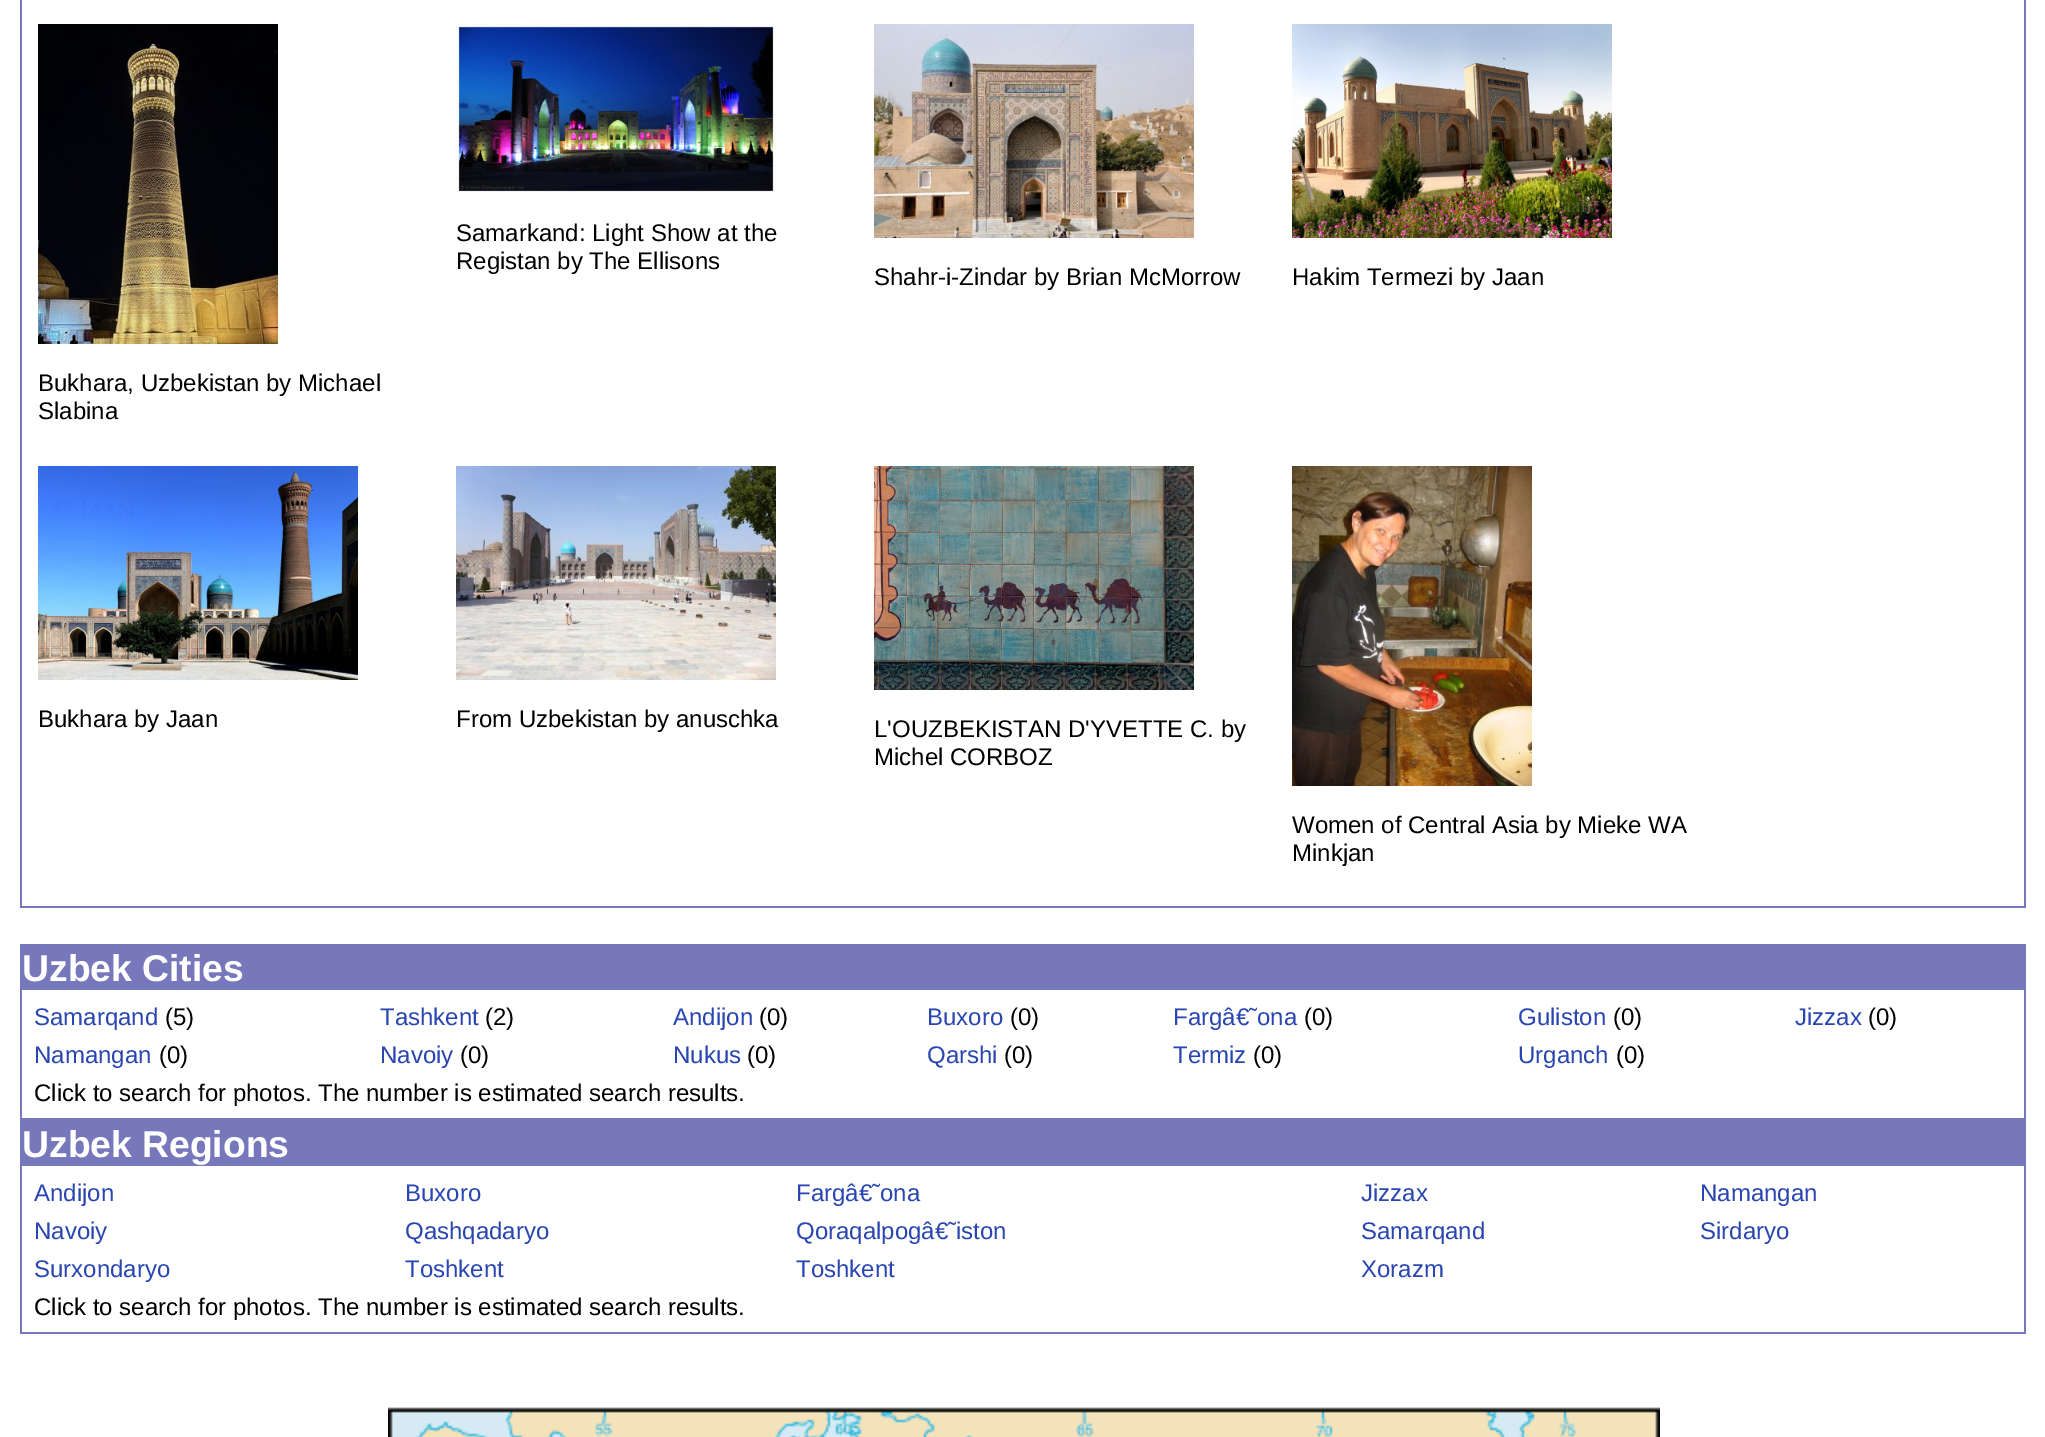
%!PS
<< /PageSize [2045 1437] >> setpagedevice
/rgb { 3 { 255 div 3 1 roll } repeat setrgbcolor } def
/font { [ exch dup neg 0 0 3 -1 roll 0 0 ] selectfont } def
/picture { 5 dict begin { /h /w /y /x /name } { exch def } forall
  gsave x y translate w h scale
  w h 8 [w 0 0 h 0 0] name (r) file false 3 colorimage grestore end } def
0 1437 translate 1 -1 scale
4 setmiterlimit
255 255 255 rgb
0 0 2045 1437 rectfill
119 119 187 rgb
20 0 2006 908 rectfill
255 255 255 rgb
22 0 2002 906 rectfill
(img/1.rgb) 456 24 320 168 picture
(img/2.rgb) 874 24 320 214 picture
(img/3.rgb) 1292 24 320 214 picture
(img/4.rgb) 38 24 240 320 picture
(img/5.rgb) 38 466 320 214 picture
(img/6.rgb) 456 466 320 214 picture
(img/7.rgb) 874 466 320 224 picture
(img/8.rgb) 1292 466 240 320 picture
[
  [20 944 2006 390 119 119 187]
  [22 990 2002 128 255 255 255]
  [22 1166 2002 166 255 255 255]
] { aload pop rgb rectfill } forall
(img/9.rgb) 388 1407 1272 30 picture
/LiberationSans-Regular 24 font
0 0 0 rgb
[
  [(Samarkand: Light Show at the) 456 241]
  [(Registan by The Ellisons) 456 269]
  [(Shahr-i-Zindar by Brian McMorrow) 874 285]
  [(Hakim Termezi by Jaan) 1292 285]
  [(Bukhara, Uzbekistan by Michael) 38 391]
  [(Slabina) 38 419]
  [(Bukhara by Jaan) 38 727]
  [(From Uzbekistan by anuschka) 456 727]
  [(L'OUZBEKISTAN D'YVETTE C. by) 874 737]
  [(Michel CORBOZ) 874 765]
  [(Women of Central Asia by Mieke WA) 1292 833]
  [(Minkjan) 1292 861]
] { aload pop moveto show } forall
/LiberationSans-Bold 37.25 font
255 255 255 rgb
22 981 moveto (Uzbek Cities) show
/LiberationSans-Regular 24 font
40 69 177 rgb
34 1025 moveto (Samarqand) show
0 0 0 rgb
165 1025 moveto (\(5\)) show
40 69 177 rgb
380 1025 moveto (Tashkent) show
0 0 0 rgb
485 1025 moveto (\(2\)) show
40 69 177 rgb
673 1025 moveto (Andijon) show
0 0 0 rgb
759 1025 moveto (\(0\)) show
40 69 177 rgb
927 1025 moveto (Buxoro) show
0 0 0 rgb
1010 1025 moveto (\(0\)) show
40 69 177 rgb
1173 1025 moveto (Fargâ€˜ona) show
0 0 0 rgb
1304 1025 moveto (\(0\)) show
40 69 177 rgb
1518 1025 moveto (Guliston) show
0 0 0 rgb
1613 1025 moveto (\(0\)) show
40 69 177 rgb
1795 1025 moveto (Jizzax) show
0 0 0 rgb
1868 1025 moveto (\(0\)) show
40 69 177 rgb
34 1063 moveto (Namangan) show
0 0 0 rgb
159 1063 moveto (\(0\)) show
40 69 177 rgb
380 1063 moveto (Navoiy) show
0 0 0 rgb
460 1063 moveto (\(0\)) show
40 69 177 rgb
673 1063 moveto (Nukus) show
0 0 0 rgb
747 1063 moveto (\(0\)) show
40 69 177 rgb
927 1063 moveto (Qarshi) show
0 0 0 rgb
1004 1063 moveto (\(0\)) show
40 69 177 rgb
1173 1063 moveto (Termiz) show
0 0 0 rgb
1253 1063 moveto (\(0\)) show
40 69 177 rgb
1518 1063 moveto (Urganch) show
0 0 0 rgb
1616 1063 moveto (\(0\)) show
34 1101 moveto (Click to search for photos. The number is estimated search results.) show
/LiberationSans-Bold 37.25 font
255 255 255 rgb
22 1157 moveto (Uzbek Regions) show
/LiberationSans-Regular 24 font
40 69 177 rgb
[
  [(Andijon) 34 1201]
  [(Buxoro) 405 1201]
  [(Fargâ€˜ona) 796 1201]
  [(Jizzax) 1361 1201]
  [(Namangan) 1700 1201]
  [(Navoiy) 34 1239]
  [(Qashqadaryo) 405 1239]
  [(Qoraqalpogâ€˜iston) 796 1239]
  [(Samarqand) 1361 1239]
  [(Sirdaryo) 1700 1239]
  [(Surxondaryo) 34 1277]
  [(Toshkent) 405 1277]
  [(Toshkent) 796 1277]
  [(Xorazm) 1361 1277]
] { aload pop moveto show } forall
0 0 0 rgb
34 1315 moveto (Click to search for photos. The number is estimated search results.) show
showpage
